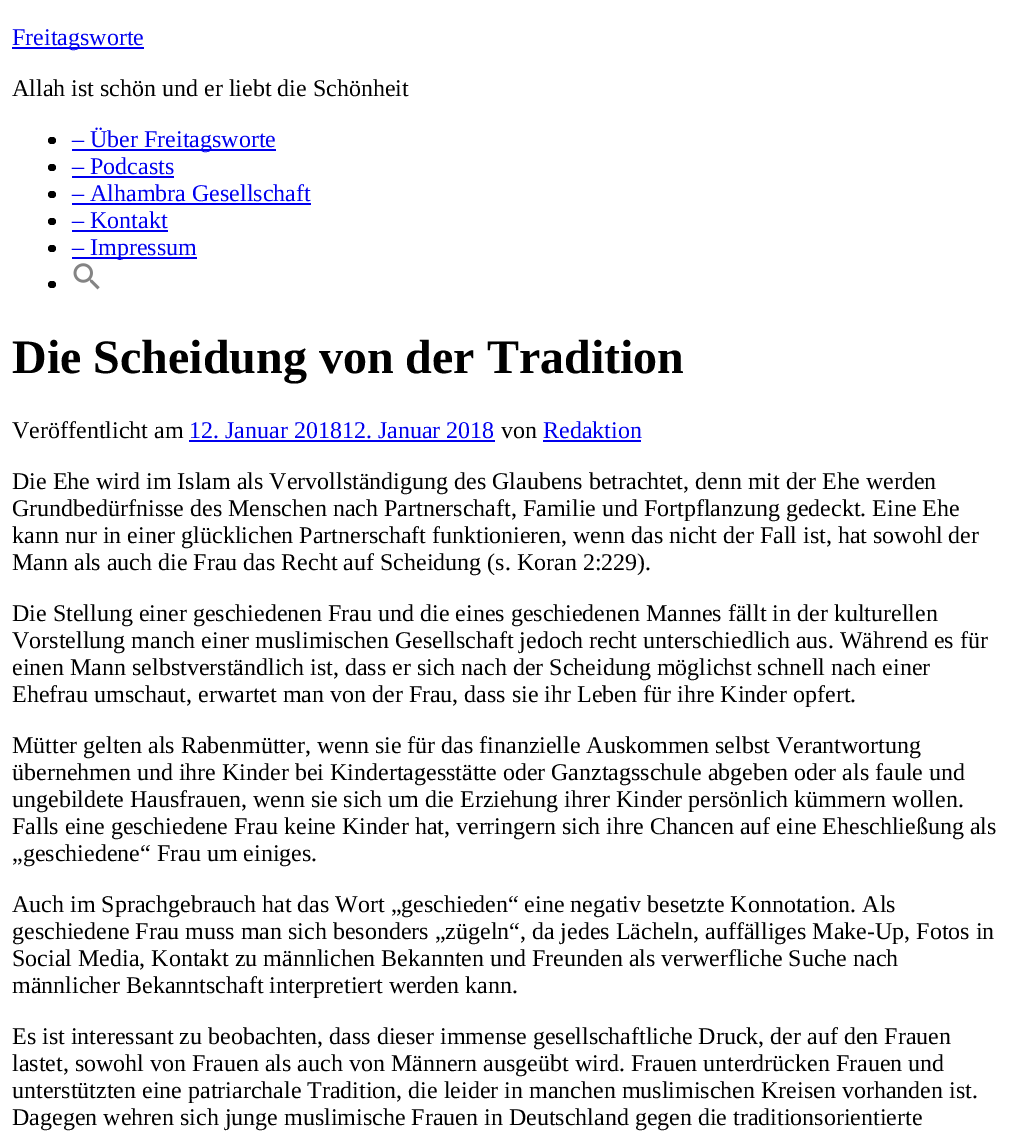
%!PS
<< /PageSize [1010 1135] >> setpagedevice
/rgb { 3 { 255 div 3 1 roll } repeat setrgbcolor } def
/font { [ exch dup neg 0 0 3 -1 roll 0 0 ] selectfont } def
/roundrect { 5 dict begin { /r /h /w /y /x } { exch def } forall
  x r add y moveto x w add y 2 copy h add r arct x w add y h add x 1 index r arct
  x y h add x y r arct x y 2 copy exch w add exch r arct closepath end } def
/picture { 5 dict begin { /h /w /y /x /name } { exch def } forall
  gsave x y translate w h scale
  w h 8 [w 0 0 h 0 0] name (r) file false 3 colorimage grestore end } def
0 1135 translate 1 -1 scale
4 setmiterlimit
255 255 255 rgb
0 0 1010 1135 rectfill
0 0 238 rgb
12 47 132 2 rectfill
0 0 0 rgb
48 137 8 7 3.5 roundrect fill
0 0 238 rgb
72 149 204 2 rectfill
0 0 0 rgb
48 164 8 7 3.5 roundrect fill
0 0 238 rgb
72 176 102 2 rectfill
0 0 0 rgb
48 191 8 7 3.5 roundrect fill
0 0 238 rgb
72 203 239 2 rectfill
0 0 0 rgb
48 218 8 7 3.5 roundrect fill
0 0 238 rgb
72 230 96 2 rectfill
0 0 0 rgb
48 245 8 7 3.5 roundrect fill
0 0 238 rgb
72 257 125 2 rectfill
0 0 0 rgb
48 281 8 7 3.5 roundrect fill
(img/1.rgb) 73 263 27 27 picture
0 0 238 rgb
189 440 306 2 rectfill
543 440 98 2 rectfill
/LiberationSerif-Regular 24 font
12 45 moveto (Freitagsworte) show
0 0 0 rgb
12 96 moveto (Allah ist schön und er liebt die Schönheit) show
0 0 238 rgb
[
  [(– Über Freitagsworte) 72 147]
  [(– Podcasts) 72 174]
  [(– Alhambra Gesellschaft) 72 201]
  [(– Kontakt) 72 228]
  [(– Impressum) 72 255]
] { aload pop moveto show } forall
/LiberationSerif-Bold 48 font
0 0 0 rgb
12 373 moveto (Die Scheidung von der Tradition) show
/LiberationSerif-Regular 24 font
12 438 moveto (Veröffentlicht am) show
0 0 238 rgb
189 438 moveto (12. Januar 201812. Januar 2018) show
0 0 0 rgb
501 438 moveto (von) show
0 0 238 rgb
543 438 moveto (Redaktion) show
0 0 0 rgb
[
  [(Die Ehe wird im Islam als Vervollständigung des Glaubens betrachtet, denn mit der Ehe werden) 12 489]
  [(Grundbedürfnisse des Menschen nach Partnerschaft, Familie und Fortpflanzung gedeckt. Eine Ehe) 12 516]
  [(kann nur in einer glücklichen Partnerschaft funktionieren, wenn das nicht der Fall ist, hat sowohl der) 12 543]
  [(Mann als auch die Frau das Recht auf Scheidung \(s. Koran 2:229\).) 12 570]
  [(Die Stellung einer geschiedenen Frau und die eines geschiedenen Mannes fällt in der kulturellen) 12 621]
  [(Vorstellung manch einer muslimischen Gesellschaft jedoch recht unterschiedlich aus. Während es für) 12 648]
  [(einen Mann selbstverständlich ist, dass er sich nach der Scheidung möglichst schnell nach einer) 12 675]
  [(Ehefrau umschaut, erwartet man von der Frau, dass sie ihr Leben für ihre Kinder opfert.) 12 702]
  [(Mütter gelten als Rabenmütter, wenn sie für das finanzielle Auskommen selbst Verantwortung) 12 753]
  [(übernehmen und ihre Kinder bei Kindertagesstätte oder Ganztagsschule abgeben oder als faule und) 12 780]
  [(ungebildete Hausfrauen, wenn sie sich um die Erziehung ihrer Kinder persönlich kümmern wollen.) 12 807]
  [(Falls eine geschiedene Frau keine Kinder hat, verringern sich ihre Chancen auf eine Eheschließung als) 12 834]
  [(„geschiedene“ Frau um einiges.) 12 861]
  [(Auch im Sprachgebrauch hat das Wort „geschieden“ eine negativ besetzte Konnotation. Als) 12 912]
  [(geschiedene Frau muss man sich besonders „zügeln“, da jedes Lächeln, auffälliges Make-Up, Fotos in) 12 939]
  [(Social Media, Kontakt zu männlichen Bekannten und Freunden als verwerfliche Suche nach) 12 966]
  [(männlicher Bekanntschaft interpretiert werden kann.) 12 993]
  [(Es ist interessant zu beobachten, dass dieser immense gesellschaftliche Druck, der auf den Frauen) 12 1044]
  [(lastet, sowohl von Frauen als auch von Männern ausgeübt wird. Frauen unterdrücken Frauen und) 12 1071]
  [(unterstützten eine patriarchale Tradition, die leider in manchen muslimischen Kreisen vorhanden ist.) 12 1098]
  [(Dagegen wehren sich junge muslimische Frauen in Deutschland gegen die traditionsorientierte) 12 1125]
] { aload pop moveto show } forall
showpage
